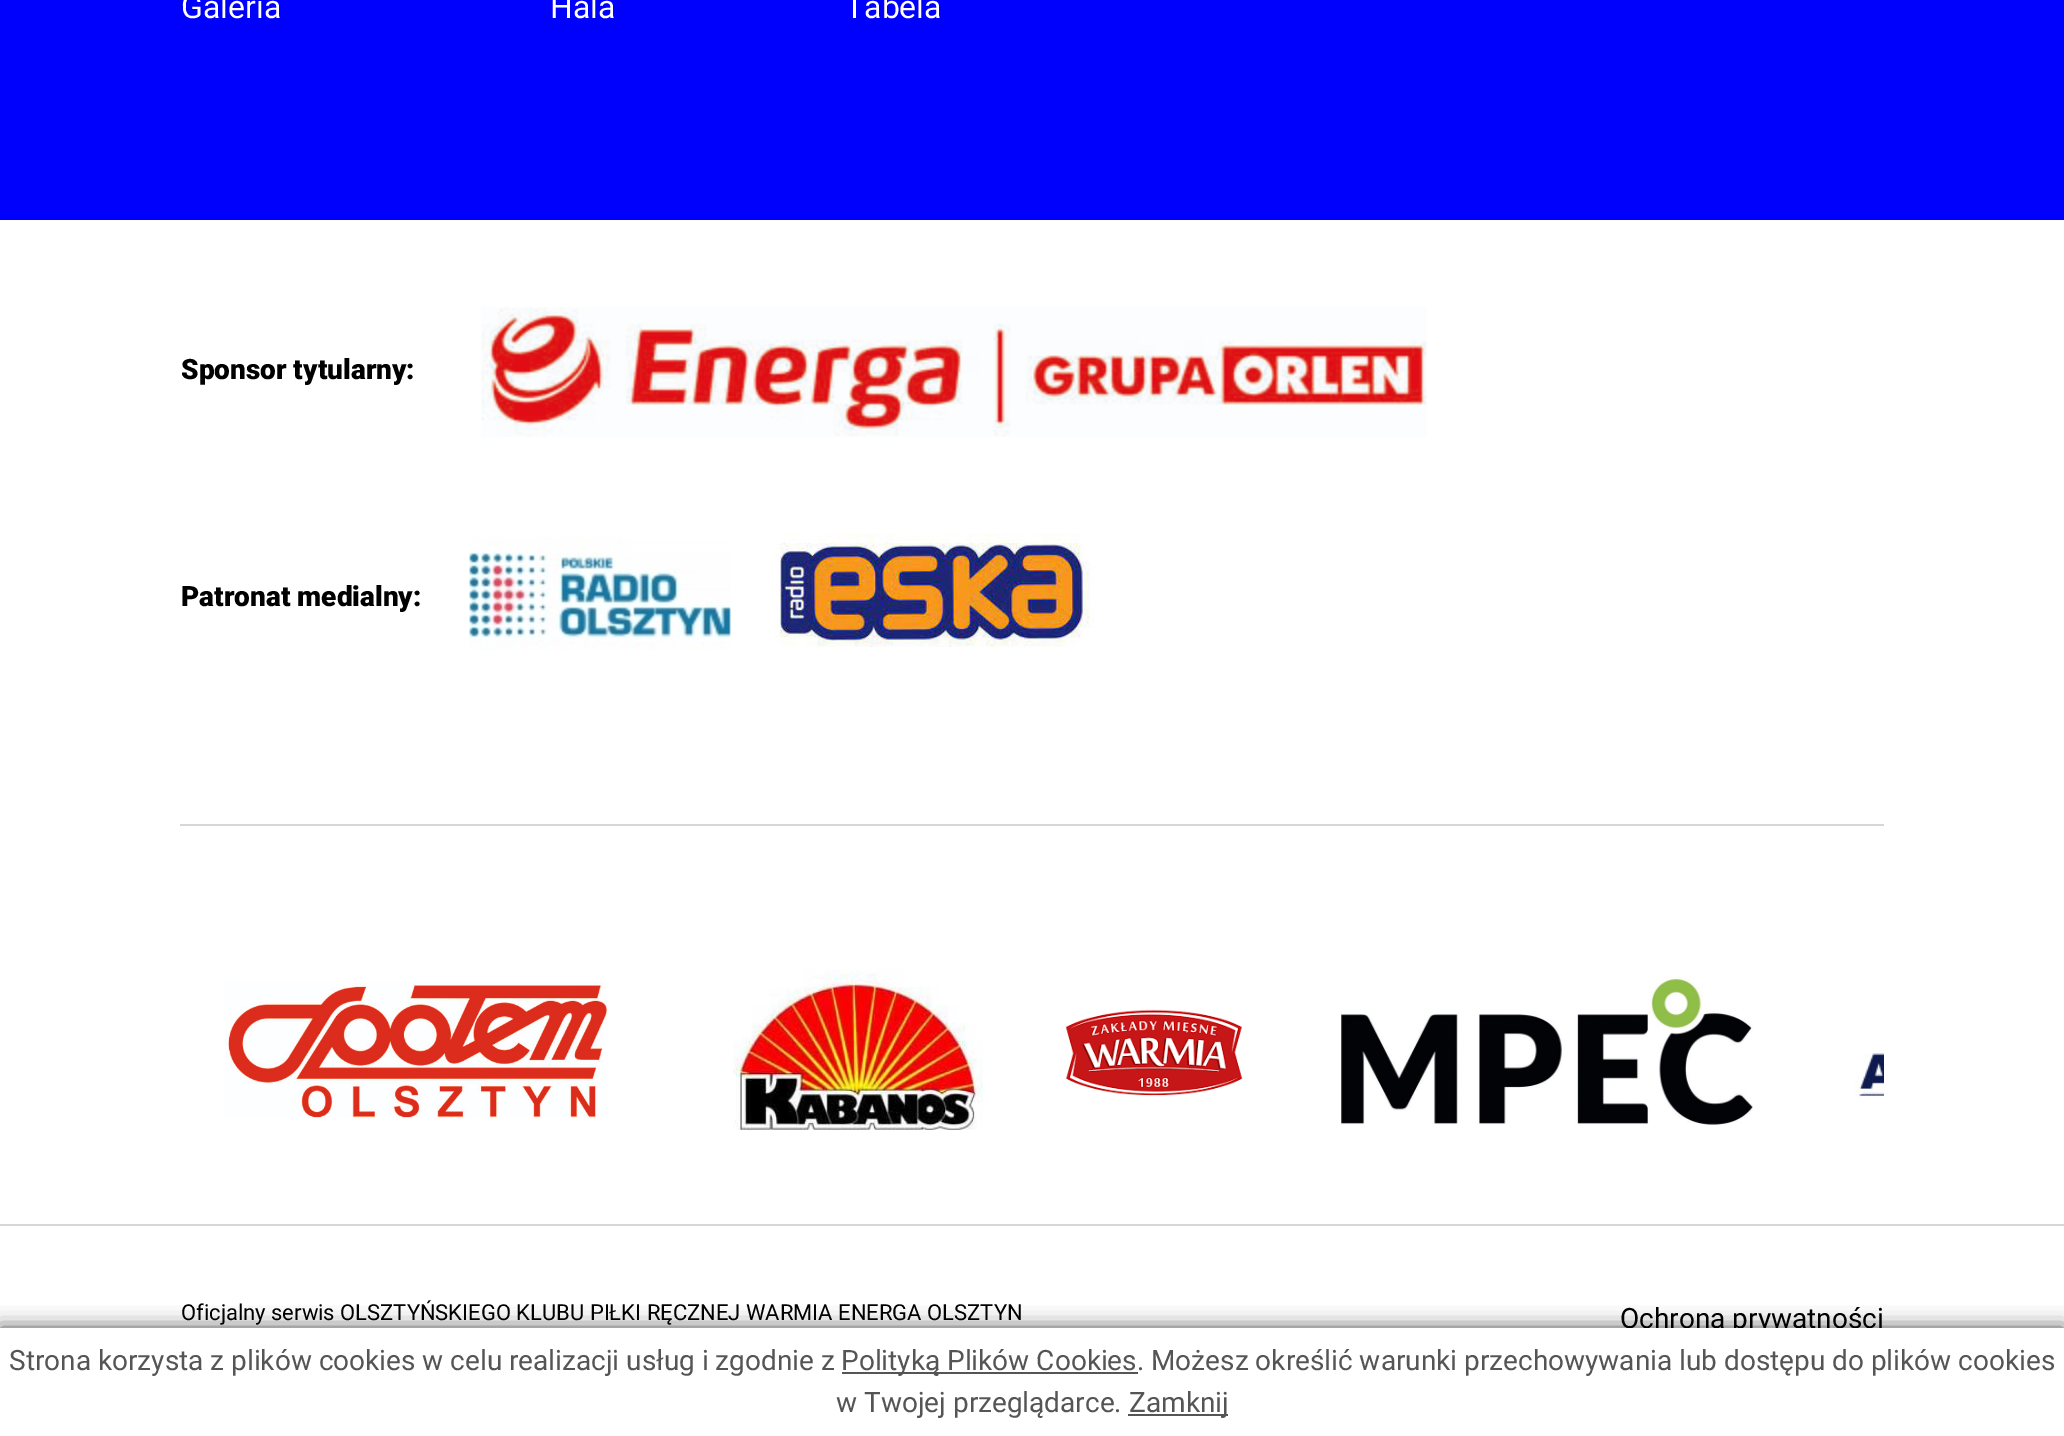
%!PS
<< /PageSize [2064 1436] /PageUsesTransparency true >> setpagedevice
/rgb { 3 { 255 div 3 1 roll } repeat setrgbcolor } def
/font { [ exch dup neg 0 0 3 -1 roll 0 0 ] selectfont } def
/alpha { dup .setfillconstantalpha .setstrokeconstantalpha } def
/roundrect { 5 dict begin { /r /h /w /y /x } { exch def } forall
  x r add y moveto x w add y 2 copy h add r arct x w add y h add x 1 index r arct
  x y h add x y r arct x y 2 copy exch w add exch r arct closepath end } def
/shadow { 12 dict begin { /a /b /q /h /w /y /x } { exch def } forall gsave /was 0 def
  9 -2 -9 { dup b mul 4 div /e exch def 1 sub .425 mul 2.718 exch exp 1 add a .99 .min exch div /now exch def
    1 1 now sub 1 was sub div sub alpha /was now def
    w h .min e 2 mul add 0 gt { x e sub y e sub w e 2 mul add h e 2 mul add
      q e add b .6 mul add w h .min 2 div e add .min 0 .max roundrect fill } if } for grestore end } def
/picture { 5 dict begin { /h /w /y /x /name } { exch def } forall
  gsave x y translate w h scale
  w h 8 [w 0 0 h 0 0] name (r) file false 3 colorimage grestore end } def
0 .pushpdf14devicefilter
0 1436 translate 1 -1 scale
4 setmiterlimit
255 255 255 rgb
0 0 2064 1436 rectfill
0 0 253 rgb
0 0 2064 220 rectfill
(img/1.rgb) 481 307 946 130 picture
(img/2.rgb) 469 537 262 113 picture
(img/3.rgb) 774 533 320 114 picture
215 215 215 rgb
180 824 1704 2 rectfill
(img/4.rgb) 225 982 383 136 picture
(img/5.rgb) 733 969 250 161 picture
(img/6.rgb) 1065 1009 178 87 picture
(img/7.rgb) 1341 975 412 150 picture
(img/8.rgb) 1854 1053 30 45 picture
0 1224 2064 2 rectfill
0 0 0 rgb
0 1328 2064 108 0 10 0.7 shadow
/Roboto-Regular 32 font
255 255 255 rgb
[
  [(Galeria) 181 18]
  [(Hala) 550 18]
  [(Tabela) 845 18]
] { aload pop moveto show } forall
/Roboto-Black 28 font
0 0 0 rgb
181 379 moveto (Sponsor tytularny:) show
181 606 moveto (Patronat medialny:) show
/Roboto-Regular 22 font
181 1320 moveto (Oficjalny serwis OLSZTYŃSKIEGO KLUBU PIŁKI RĘCZNEJ WARMIA ENERGA OLSZTYN) show
/Roboto-Regular 28 font
1620 1328 moveto (Ochrona prywatności) show
255 255 255 rgb
0 1328 2064 108 rectfill
85 85 85 rgb
9 1370 moveto (Strona korzysta z plików cookies w celu realizacji usług i zgodnie z) show
842 1372 296 2 rectfill
841 1370 moveto (Polityką Plików Cookies. Możesz określić warunki przechowywania lub dostępu do plików cookies) show
836 1412 moveto (w Twojej przeglądarce.) show
1128 1414 100 2 rectfill
1129 1412 moveto (Zamknij) show
.poppdf14devicefilter showpage
